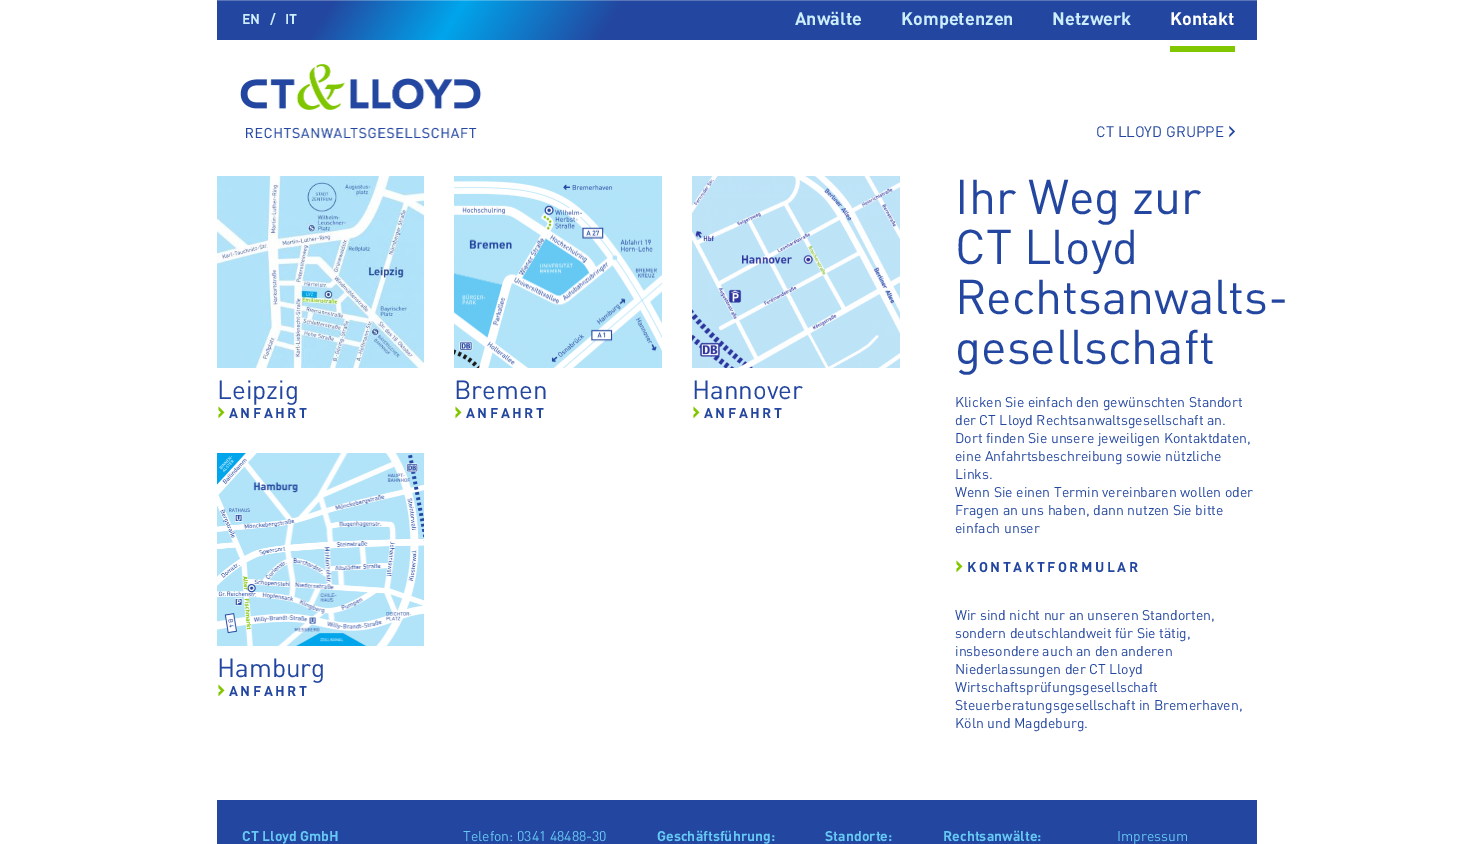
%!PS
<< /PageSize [1473 844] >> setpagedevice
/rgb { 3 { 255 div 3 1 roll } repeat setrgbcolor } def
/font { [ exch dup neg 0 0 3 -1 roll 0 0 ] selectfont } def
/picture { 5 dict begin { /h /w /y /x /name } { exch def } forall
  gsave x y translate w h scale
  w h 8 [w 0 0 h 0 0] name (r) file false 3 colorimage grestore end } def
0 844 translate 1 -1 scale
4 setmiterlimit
255 255 255 rgb
0 0 1473 844 rectfill
(img/1.rgb) 217 0 1040 40 picture
128 199 0 rgb
1170 46 65 6 rectfill
(img/2.rgb) 240 64 242 75 picture
(img/3.rgb) 217 176 207 192 picture
(img/4.rgb) 454 176 208 192 picture
(img/5.rgb) 692 176 208 192 picture
(img/6.rgb) 217 453 207 193 picture
35 71 160 rgb
217 800 1040 44 rectfill
/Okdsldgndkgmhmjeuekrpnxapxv-Bold 14 font
204 237 251 rgb
[
  [(EN) 242 24]
  [(/) 270 24]
  [(IT) 285 24]
] { aload pop moveto show } forall
/Okdsldgndkgmhmjeuekrpnxapxv-Bold 18 font
[
  [(Anwälte) 795 25]
  [(Kompetenzen) 901 25]
  [(Netzwerk) 1052 25]
] { aload pop moveto show } forall
255 255 255 rgb
1170 25 moveto (Kontakt) show
/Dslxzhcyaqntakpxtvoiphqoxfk-Regular 15 font
35 71 160 rgb
1096 137 moveto (CT LLOYD GRUPPE) show
/Dslxzhcyaqntakpxtvoiphqoxfk-Regular 28 font
1227 139 moveto (›) show
/Dslxzhcyaqntakpxtvoiphqoxfk-Regular 26 font
217 399 moveto (Leipzig) show
/Okdsldgndkgmhmjeuekrpnxapxv-Bold 24 font
130 198 0 rgb
217 419 moveto 2.5 0 (›) ashow
/Okdsldgndkgmhmjeuekrpnxapxv-Bold 14 font
35 71 160 rgb
229 418 moveto 2.5 0 (ANFAHRT) ashow
/Dslxzhcyaqntakpxtvoiphqoxfk-Regular 26 font
454 399 moveto (Bremen) show
/Okdsldgndkgmhmjeuekrpnxapxv-Bold 24 font
130 198 0 rgb
454 419 moveto 2.5 0 (›) ashow
/Okdsldgndkgmhmjeuekrpnxapxv-Bold 14 font
35 71 160 rgb
466 418 moveto 2.5 0 (ANFAHRT) ashow
/Dslxzhcyaqntakpxtvoiphqoxfk-Regular 26 font
692 399 moveto (Hannover) show
/Okdsldgndkgmhmjeuekrpnxapxv-Bold 24 font
130 198 0 rgb
692 419 moveto 2.5 0 (›) ashow
/Okdsldgndkgmhmjeuekrpnxapxv-Bold 14 font
35 71 160 rgb
704 418 moveto 2.5 0 (ANFAHRT) ashow
/Dslxzhcyaqntakpxtvoiphqoxfk-Regular 26 font
217 677 moveto (Hamburg) show
/Okdsldgndkgmhmjeuekrpnxapxv-Bold 24 font
130 198 0 rgb
217 697 moveto 2.5 0 (›) ashow
/Okdsldgndkgmhmjeuekrpnxapxv-Bold 14 font
35 71 160 rgb
229 696 moveto 2.5 0 (ANFAHRT) ashow
/Dslxzhcyaqntakpxtvoiphqoxfk-Regular 48 font
[
  [(Ihr Weg zur) 955 214]
  [(CT Lloyd) 955 264]
  [(Rechtsanwalts-) 955 314]
  [(gesellschaft) 955 364]
] { aload pop moveto show } forall
/Dslxzhcyaqntakpxtvoiphqoxfk-Regular 14 font
[
  [(Klicken Sie einfach den gewünschten Standort) 955 407]
  [(der CT Lloyd Rechtsanwaltsgesellschaft an.) 955 425]
  [(Dort finden Sie unsere jeweiligen Kontaktdaten,) 955 443]
  [(eine Anfahrtsbeschreibung sowie nützliche) 955 461]
  [(Links.) 955 479]
  [(Wenn Sie einen Termin vereinbaren wollen oder) 955 497]
  [(Fragen an uns haben, dann nutzen Sie bitte) 955 515]
  [(einfach unser) 955 533]
] { aload pop moveto show } forall
/Okdsldgndkgmhmjeuekrpnxapxv-Bold 24 font
130 198 0 rgb
955 573 moveto 2.5 0 (›) ashow
/Okdsldgndkgmhmjeuekrpnxapxv-Bold 14 font
35 71 160 rgb
967 572 moveto 2.5 0 (KONTAKTFORMULAR) ashow
/Dslxzhcyaqntakpxtvoiphqoxfk-Regular 14 font
[
  [(Wir sind nicht nur an unseren Standorten,) 955 620]
  [(sondern deutschlandweit für Sie tätig,) 955 638]
  [(insbesondere auch an den anderen) 955 656]
  [(Niederlassungen der CT Lloyd) 955 674]
  [(Wirtschaftsprüfungsgesellschaft) 955 692]
  [(Steuerberatungsgesellschaft in Bremerhaven,) 955 710]
  [(Köln und Magdeburg.) 955 728]
] { aload pop moveto show } forall
/Okdsldgndkgmhmjeuekrpnxapxv-Bold 14 font
102 201 243 rgb
242 841 moveto (CT Lloyd GmbH) show
/Dslxzhcyaqntakpxtvoiphqoxfk-Regular 14 font
463 841 moveto (Telefon: 0341 48488-30) show
/Okdsldgndkgmhmjeuekrpnxapxv-Bold 14 font
[
  [(Geschäftsführung:) 657 841]
  [(Standorte:) 825 841]
  [(Rechtsanwälte:) 943 841]
] { aload pop moveto show } forall
/Dslxzhcyaqntakpxtvoiphqoxfk-Regular 14 font
1117 841 moveto (Impressum) show
showpage
